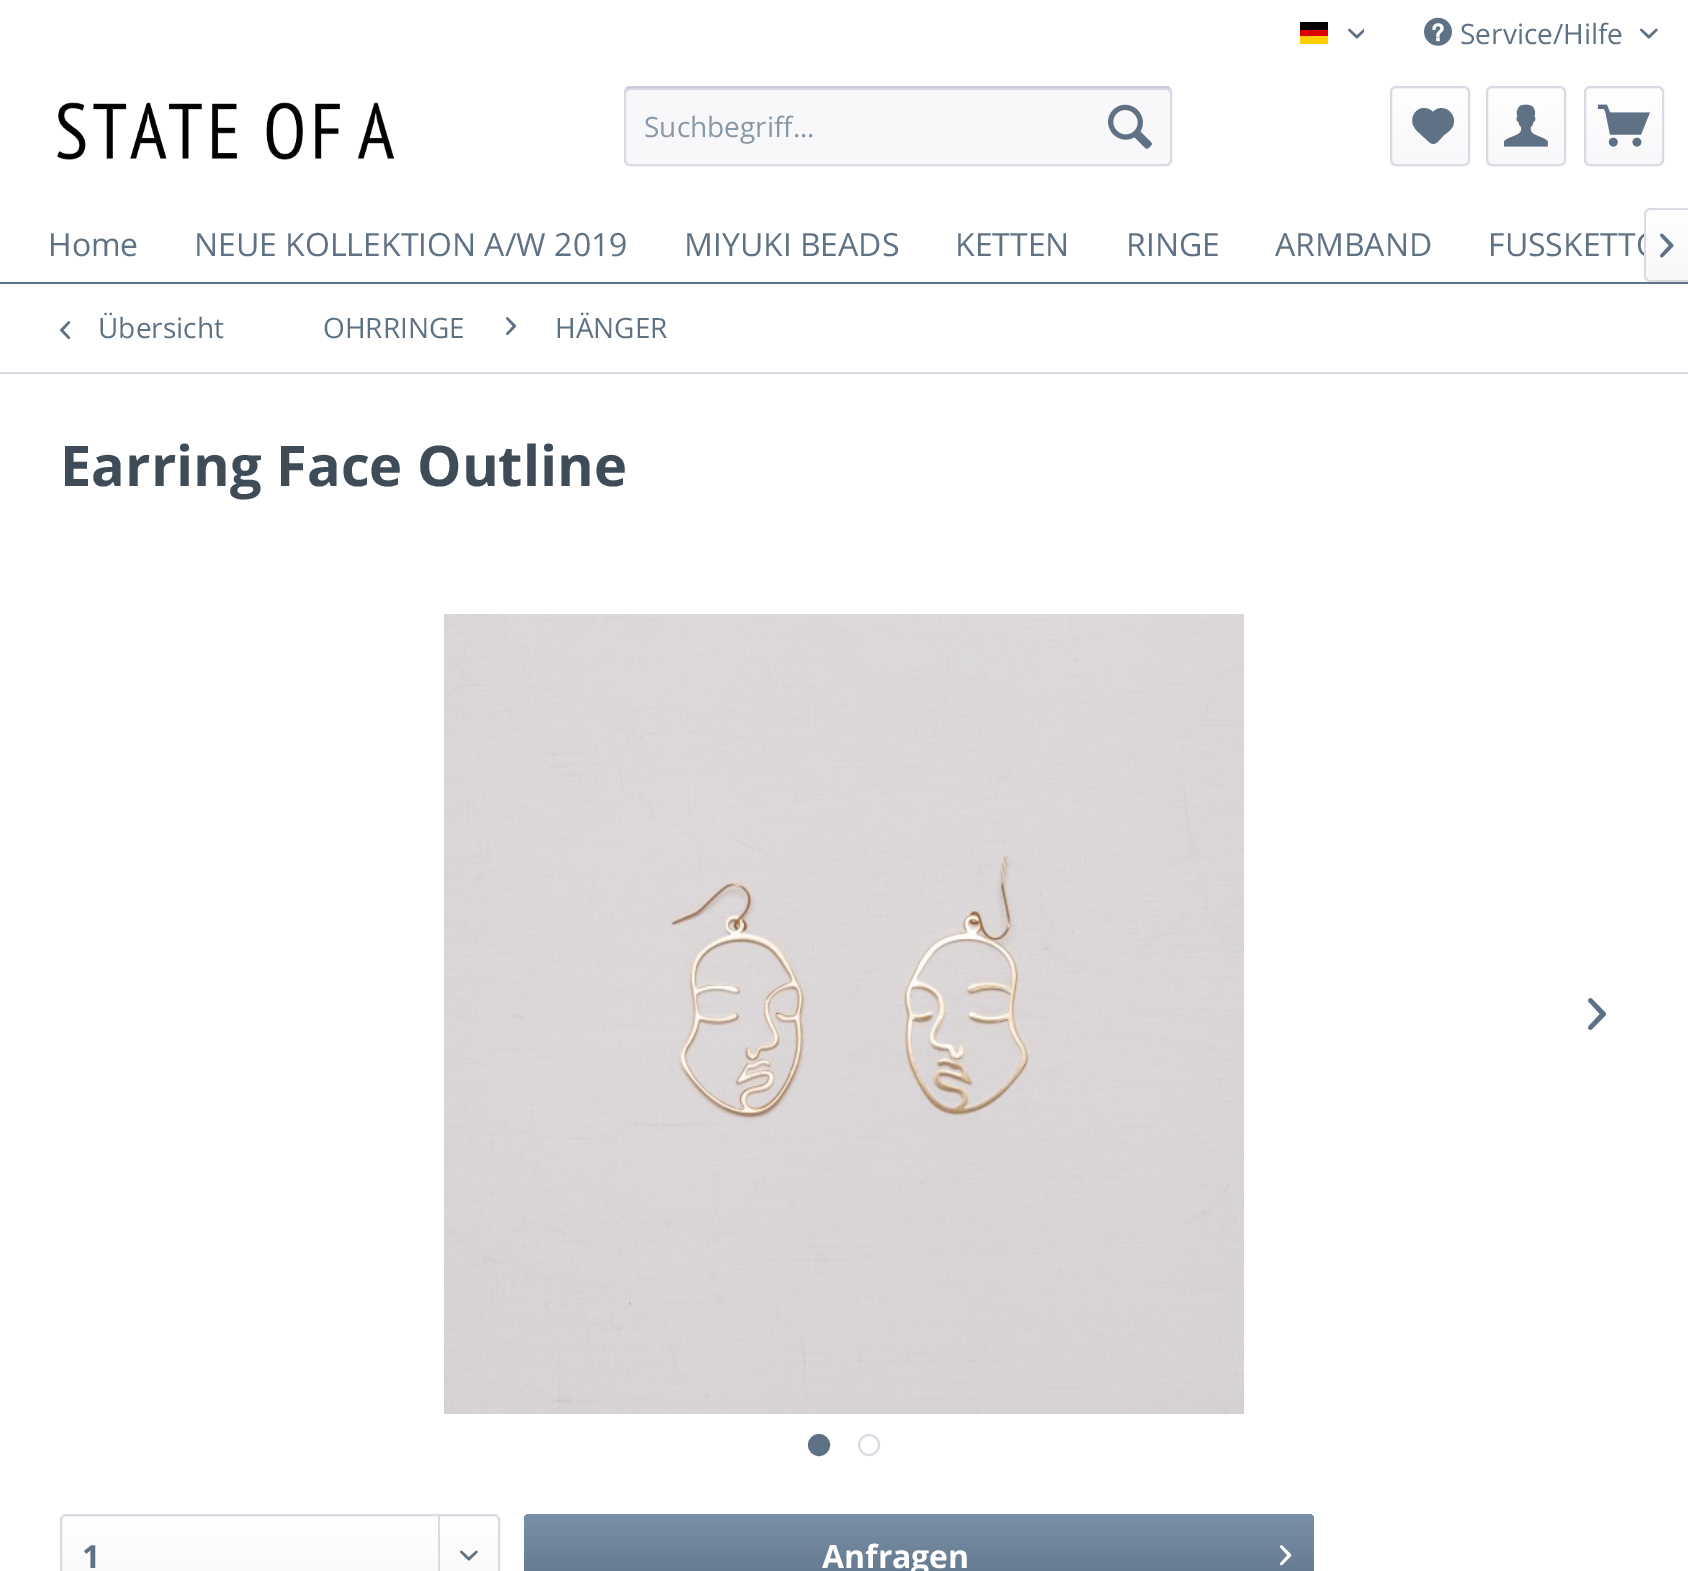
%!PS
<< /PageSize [1688 1571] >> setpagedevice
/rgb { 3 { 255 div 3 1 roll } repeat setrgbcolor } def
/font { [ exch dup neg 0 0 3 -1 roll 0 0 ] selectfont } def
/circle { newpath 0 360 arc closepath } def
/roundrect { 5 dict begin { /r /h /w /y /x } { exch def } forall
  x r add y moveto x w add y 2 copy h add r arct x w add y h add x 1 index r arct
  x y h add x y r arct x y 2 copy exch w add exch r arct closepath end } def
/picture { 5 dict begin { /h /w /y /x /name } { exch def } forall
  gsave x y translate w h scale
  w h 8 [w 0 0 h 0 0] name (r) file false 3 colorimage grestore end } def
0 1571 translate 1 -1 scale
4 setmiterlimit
255 255 255 rgb
0 0 1688 1571 rectfill
[
  [1300 22 28 8 0 0 0]
  [1300 30 28 6 221 0 0]
  [1300 36 28 8 255 206 0]
] { aload pop rgb rectfill } forall
(img/1.rgb) 1348 28 16 11 picture
(img/2.rgb) 1424 17 28 29 picture
(img/3.rgb) 1640 28 18 11 picture
(img/4.rgb) 57 102 338 58 picture
248 248 250 rgb
624 86 548 80 6 roundrect fill
218 218 229 rgb
630 90 moveto 1166 90 lineto 1168 90 1170 92 1170 94 curveto 1170 92 lineto 1170 90 1168 88 1166 88 curveto 630 88 lineto 628 88 626 90 626 92 curveto 626 94 lineto 626 92 628 90 630 90 curveto closepath fill
203 203 219 rgb
2 setlinewidth
626.5 88.5 moveto 627.5 87.5 628.5 87 630 87 curveto 1166 87 lineto 1167.5 87 1168.5 87.5 1169.5 88.5 curveto stroke
218 218 229 rgb
1169.5 88.5 moveto 1170.5 89.5 1171 90.5 1171 92 curveto 1171 160 lineto 1171 161.5 1170.5 162.5 1169.5 163.5 curveto 1168.5 164.5 1167.5 165 1166 165 curveto 630 165 lineto 628.5 165 627.5 164.5 626.5 163.5 curveto 625.5 162.5 625 161.5 625 160 curveto 625 92 lineto 625 90.5 625.5 89.5 626.5 88.5 curveto stroke
(img/5.rgb) 1108 104 44 45 picture
gsave 1392 88 76 76 4 roundrect clip newpath
<< /ShadingType 2 /ColorSpace /DeviceRGB /Coords [1430 88 1430 164] /Extend [true true] /Function << /FunctionType 2 /Domain [0 1] /C0 [1 1 1] /C1 [0.973 0.973 0.98] /N 1 >> >> shfill grestore
1391 87 78 78 5 roundrect stroke
95 114 133 rgb
1424 108 moveto 1416 108 1410 117 1413 125 curveto 1416 130 lineto 1428 141 lineto 1435 148 1438 141 1444 135 curveto 1447 133 1451 130 1453 126 curveto 1458 113 1442 102 1433 112 curveto 1431 110 1428 108 1424 108 curveto closepath fill
gsave 1488 88 76 76 4 roundrect clip newpath
<< /ShadingType 2 /ColorSpace /DeviceRGB /Coords [1526 88 1526 164] /Extend [true true] /Function << /FunctionType 2 /Domain [0 1] /C0 [1 1 1] /C1 [0.973 0.973 0.98] /N 1 >> >> shfill grestore
218 218 229 rgb
1487 87 78 78 5 roundrect stroke
(img/6.rgb) 1504 104 44 43 picture
gsave 1586 88 76 76 4 roundrect clip newpath
<< /ShadingType 2 /ColorSpace /DeviceRGB /Coords [1624 88 1624 164] /Extend [true true] /Function << /FunctionType 2 /Domain [0 1] /C0 [1 1 1] /C1 [0.973 0.973 0.98] /N 1 >> >> shfill grestore
1585 87 78 78 5 roundrect stroke
(img/7.rgb) 1598 104 52 43 picture
95 114 133 rgb
0 282 1688 2 rectfill
218 218 229 rgb
0 372 1688 2 rectfill
(img/9.rgb) 60 321 11 19 picture
(img/10.rgb) 506 317 11 19 picture
(img/11.rgb) 444 614 800 800 picture
(img/12.rgb) 1588 998 18 32 picture
95 114 133 rgb
819 1445 10 circle gsave fill grestore
stroke
218 218 229 rgb
869 1445 10 circle stroke
gsave 62 1516 436 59 4 roundrect clip newpath
<< /ShadingType 2 /ColorSpace /DeviceRGB /Coords [280 1516 280 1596] /Extend [true true] /Function << /FunctionType 2 /Domain [0 1] /C0 [1 1 1] /C1 [0.973 0.973 0.98] /N 1 >> >> shfill grestore
61 1515 438 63 5 roundrect stroke
438 1516 2 55 rectfill
(img/13.rgb) 460 1550 18 11 picture
gsave 524 1514 790 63 6 roundrect clip newpath
<< /ShadingType 2 /ColorSpace /DeviceRGB /Coords [919 1514 919 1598] /Extend [true true] /Function << /FunctionType 2 /Domain [0 1] /C0 [0.475 0.569 0.663] /C1 [0.373 0.447 0.522] /N 1 >> >> shfill grestore
(img/14.rgb) 1280 1545 12 21 picture
/OpenSans-Regular 28 font
95 114 133 rgb
1460 44 moveto (Service/Hilfe) show
135 152 169 rgb
644 137 moveto (Suchbegriff...) show
/OpenSans-Regular 32 font
95 114 133 rgb
[
  [(Home) 48 256]
  [(NEUE KOLLEKTION A/W 2019) 194 256]
  [(MIYUKI BEADS) 684 256]
  [(KETTEN) 955 256]
  [(RINGE) 1126 256]
  [(ARMBAND) 1275 256]
  [(FUSSKETTC) 1488 256]
] { aload pop moveto show } forall
gsave 1650 210 moveto 1688 210 lineto 1688 280 lineto 1650 280 lineto 1648 280 1646 278 1646 276 curveto 1646 214 lineto 1646 212 1648 210 1650 210 curveto closepath clip newpath
<< /ShadingType 2 /ColorSpace /DeviceRGB /Coords [1667 210 1667 280] /Extend [true true] /Function << /FunctionType 2 /Domain [0 1] /C0 [1 1 1] /C1 [0.973 0.973 0.98] /N 1 >> >> shfill grestore
218 218 229 rgb
1650 208 moveto 1688 208 lineto 1688 282 lineto 1650 282 lineto 1647 282 1644 279 1644 276 curveto 1644 214 lineto 1644 211 1647 208 1650 208 curveto closepath 1650 210 moveto 1688 210 lineto 1688 280 lineto 1650 280 lineto 1648 280 1646 278 1646 276 curveto 1646 214 lineto 1646 212 1648 210 1650 210 curveto closepath eofill
(img/8.rgb) 1660 233 14 25 picture
/OpenSans-Regular 28 font
95 114 133 rgb
[
  [(Übersicht) 98 338]
  [(OHRRINGE) 323 338]
  [(HÄNGER) 555 338]
] { aload pop moveto show } forall
/OpenSans-Bold 56 font
63 76 88 rgb
60 486 moveto (Earring Face Outline) show
/OpenSans-Bold 32 font
95 114 133 rgb
82 1568 moveto (1) show
255 255 255 rgb
822 1568 moveto (Anfragen) show
showpage
